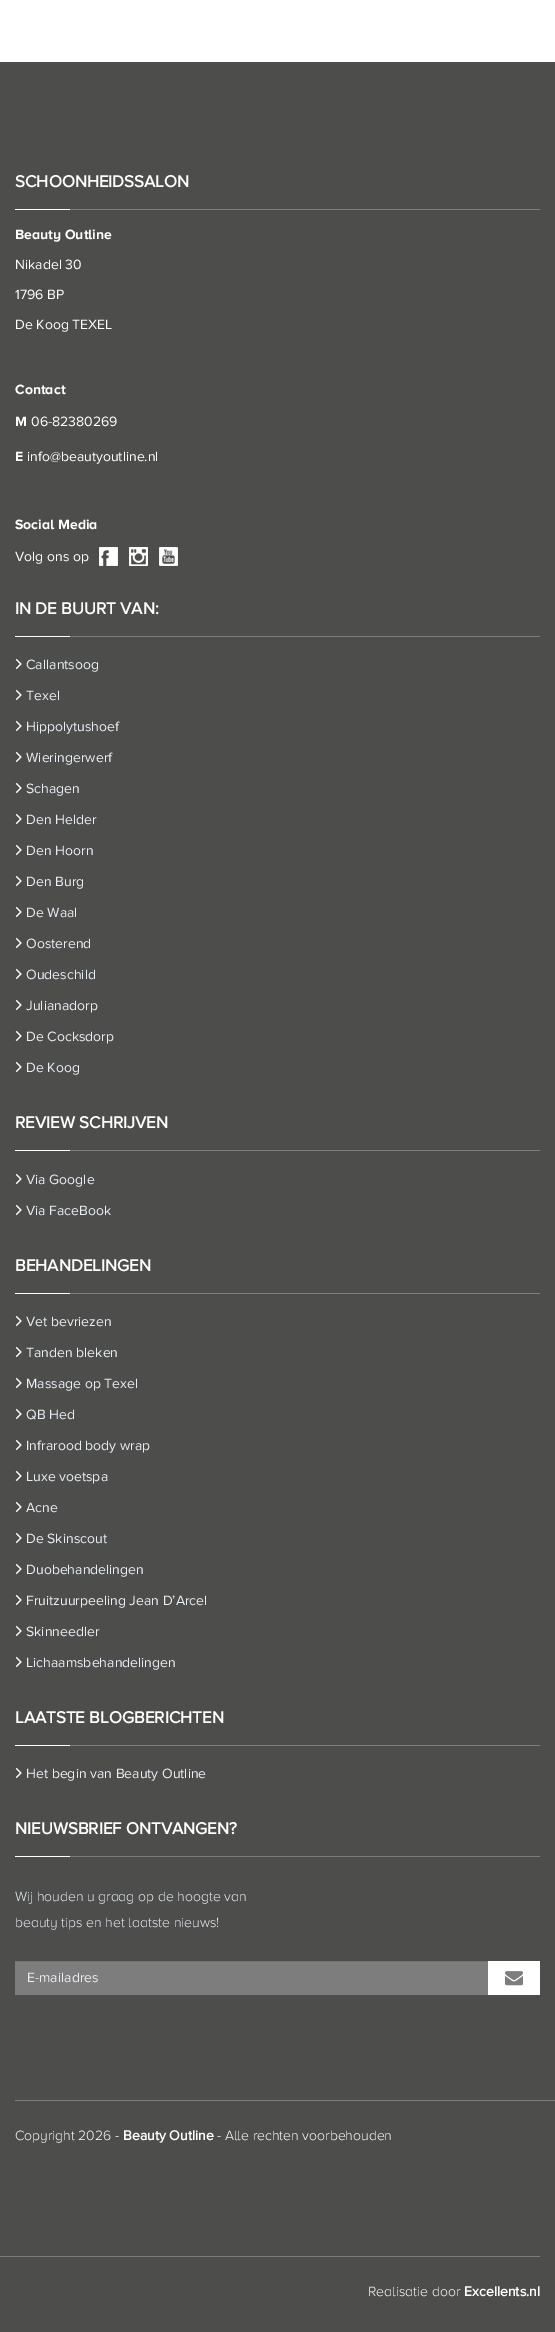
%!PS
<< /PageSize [555 2332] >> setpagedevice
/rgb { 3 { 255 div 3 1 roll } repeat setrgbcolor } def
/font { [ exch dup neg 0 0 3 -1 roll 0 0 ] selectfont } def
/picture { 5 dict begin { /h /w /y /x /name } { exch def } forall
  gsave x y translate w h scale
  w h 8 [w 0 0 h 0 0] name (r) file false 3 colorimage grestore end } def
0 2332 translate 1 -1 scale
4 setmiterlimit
255 255 255 rgb
0 0 555 2332 rectfill
[
  [0 62 555 2270 77 78 76]
  [15 209 55 1 255 255 255]
  [70 209 470 1 125 125 125]
] { aload pop rgb rectfill } forall
(img/1.rgb) 99 547 19 19 picture
(img/2.rgb) 129 547 19 19 picture
(img/3.rgb) 159 547 19 19 picture
255 255 255 rgb
15 636 55 1 rectfill
125 125 125 rgb
70 636 470 1 rectfill
(img/4.rgb) 15 658 7 12 picture
(img/4.rgb) 15 689 7 12 picture
(img/4.rgb) 15 720 7 12 picture
(img/4.rgb) 15 751 7 12 picture
(img/4.rgb) 15 782 7 12 picture
(img/4.rgb) 15 813 7 12 picture
(img/4.rgb) 15 844 7 12 picture
(img/4.rgb) 15 875 7 12 picture
(img/4.rgb) 15 906 7 12 picture
(img/4.rgb) 15 937 7 12 picture
(img/4.rgb) 15 968 7 12 picture
(img/4.rgb) 15 999 7 12 picture
(img/4.rgb) 15 1030 7 12 picture
(img/4.rgb) 15 1061 7 12 picture
255 255 255 rgb
15 1150 55 1 rectfill
125 125 125 rgb
70 1150 470 1 rectfill
(img/4.rgb) 15 1173 7 12 picture
(img/4.rgb) 15 1204 7 12 picture
255 255 255 rgb
15 1293 55 1 rectfill
125 125 125 rgb
70 1293 470 1 rectfill
(img/4.rgb) 15 1315 7 12 picture
(img/4.rgb) 15 1346 7 12 picture
(img/4.rgb) 15 1377 7 12 picture
(img/4.rgb) 15 1408 7 12 picture
(img/4.rgb) 15 1439 7 12 picture
(img/4.rgb) 15 1470 7 12 picture
(img/4.rgb) 15 1501 7 12 picture
(img/4.rgb) 15 1532 7 12 picture
(img/4.rgb) 15 1563 7 12 picture
(img/4.rgb) 15 1594 7 12 picture
(img/4.rgb) 15 1625 7 12 picture
(img/4.rgb) 15 1656 7 12 picture
255 255 255 rgb
15 1745 55 1 rectfill
125 125 125 rgb
70 1745 470 1 rectfill
(img/4.rgb) 15 1767 7 12 picture
[
  [15 1856 55 1 255 255 255]
  [70 1856 470 1 125 125 125]
  [15 1962 473 33 125 125 125]
  [15 1961 473 1 116 116 116]
  [488 1961 52 34 255 255 255]
] { aload pop rgb rectfill } forall
(img/5.rgb) 505 1971 18 15 picture
125 125 125 rgb
15 2100 540 1 rectfill
0 2256 540 1 rectfill
/ProximaNova-Bold 17 font
255 255 255 rgb
15 187 moveto (SCHOONHEIDSSALON) show
/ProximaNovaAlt-Bold 14 font
15 239 moveto (Beauty Outline) show
/ProximaNova-Regular 14 font
[
  [(Nikadel 30) 15 269]
  [(1796 BP) 15 299]
  [(De Koog TEXEL) 15 329]
] { aload pop moveto show } forall
/ProximaNovaAlt-Bold 14 font
15 394 moveto (Contact) show
15 426 moveto (M) show
/ProximaNova-Regular 14 font
31 426 moveto (06-82380269) show
/ProximaNovaAlt-Bold 14 font
15 461 moveto (E) show
/ProximaNova-Regular 14 font
27 461 moveto (info@beautyoutline.nl) show
/ProximaNovaAlt-Bold 14 font
15 529 moveto (Social Media) show
/ProximaNova-Regular 14 font
15 561 moveto (Volg ons op) show
/ProximaNova-Bold 17 font
15 614 moveto (IN DE BUURT VAN:) show
/ProximaNova-Regular 14 font
233 238 244 rgb
[
  [(Callantsoog) 26 669]
  [(Texel) 26 700]
  [(Hippolytushoef) 26 731]
  [(Wieringerwerf) 26 762]
  [(Schagen) 26 793]
  [(Den Helder) 26 824]
  [(Den Hoorn) 26 855]
  [(Den Burg) 26 886]
  [(De Waal) 26 917]
  [(Oosterend) 26 948]
  [(Oudeschild) 26 979]
  [(Julianadorp) 26 1010]
  [(De Cocksdorp) 26 1041]
  [(De Koog) 26 1072]
] { aload pop moveto show } forall
/ProximaNova-Bold 17 font
255 255 255 rgb
15 1128 moveto (REVIEW SCHRIJVEN) show
/ProximaNova-Regular 14 font
233 238 244 rgb
26 1184 moveto (Via Google) show
26 1215 moveto (Via FaceBook) show
/ProximaNova-Bold 17 font
255 255 255 rgb
15 1271 moveto (BEHANDELINGEN) show
/ProximaNova-Regular 14 font
233 238 244 rgb
[
  [(Vet bevriezen) 26 1326]
  [(Tanden bleken) 26 1357]
  [(Massage op Texel) 26 1388]
  [(QB Hed) 26 1419]
  [(Infrarood body wrap) 26 1450]
  [(Luxe voetspa) 26 1481]
  [(Acne) 26 1512]
  [(De Skinscout) 26 1543]
  [(Duobehandelingen) 26 1574]
  [(Fruitzuurpeeling Jean D’Arcel) 26 1605]
  [(Skinneedler) 26 1636]
  [(Lichaamsbehandelingen) 26 1667]
] { aload pop moveto show } forall
/ProximaNova-Bold 17 font
255 255 255 rgb
15 1723 moveto (LAATSTE BLOGBERICHTEN) show
/ProximaNova-Regular 14 font
233 238 244 rgb
26 1778 moveto (Het begin van Beauty Outline) show
/ProximaNova-Bold 17 font
255 255 255 rgb
15 1834 moveto (NIEUWSBRIEF ONTVANGEN?) show
/ProximaNovaAlt-Light 14 font
233 238 244 rgb
15 1901 moveto (Wij houden u graag op de hoogte van) show
15 1927 moveto (beauty tips en het laatste nieuws!) show
/ProximaNova-Regular 14 font
27 1982 moveto (E-mailadres) show
/ProximaNovaAlt-Light 14 font
255 255 255 rgb
15 2140 moveto (Copyright 2026 -) show
/ProximaNova-Bold 14 font
123 2140 moveto (Beauty Outline) show
/ProximaNovaAlt-Light 14 font
217 2140 moveto (- Alle rechten voorbehouden) show
368 2296 moveto (Realisatie door) show
/ProximaNova-Bold 14 font
464 2296 moveto (Excellents.nl) show
showpage
